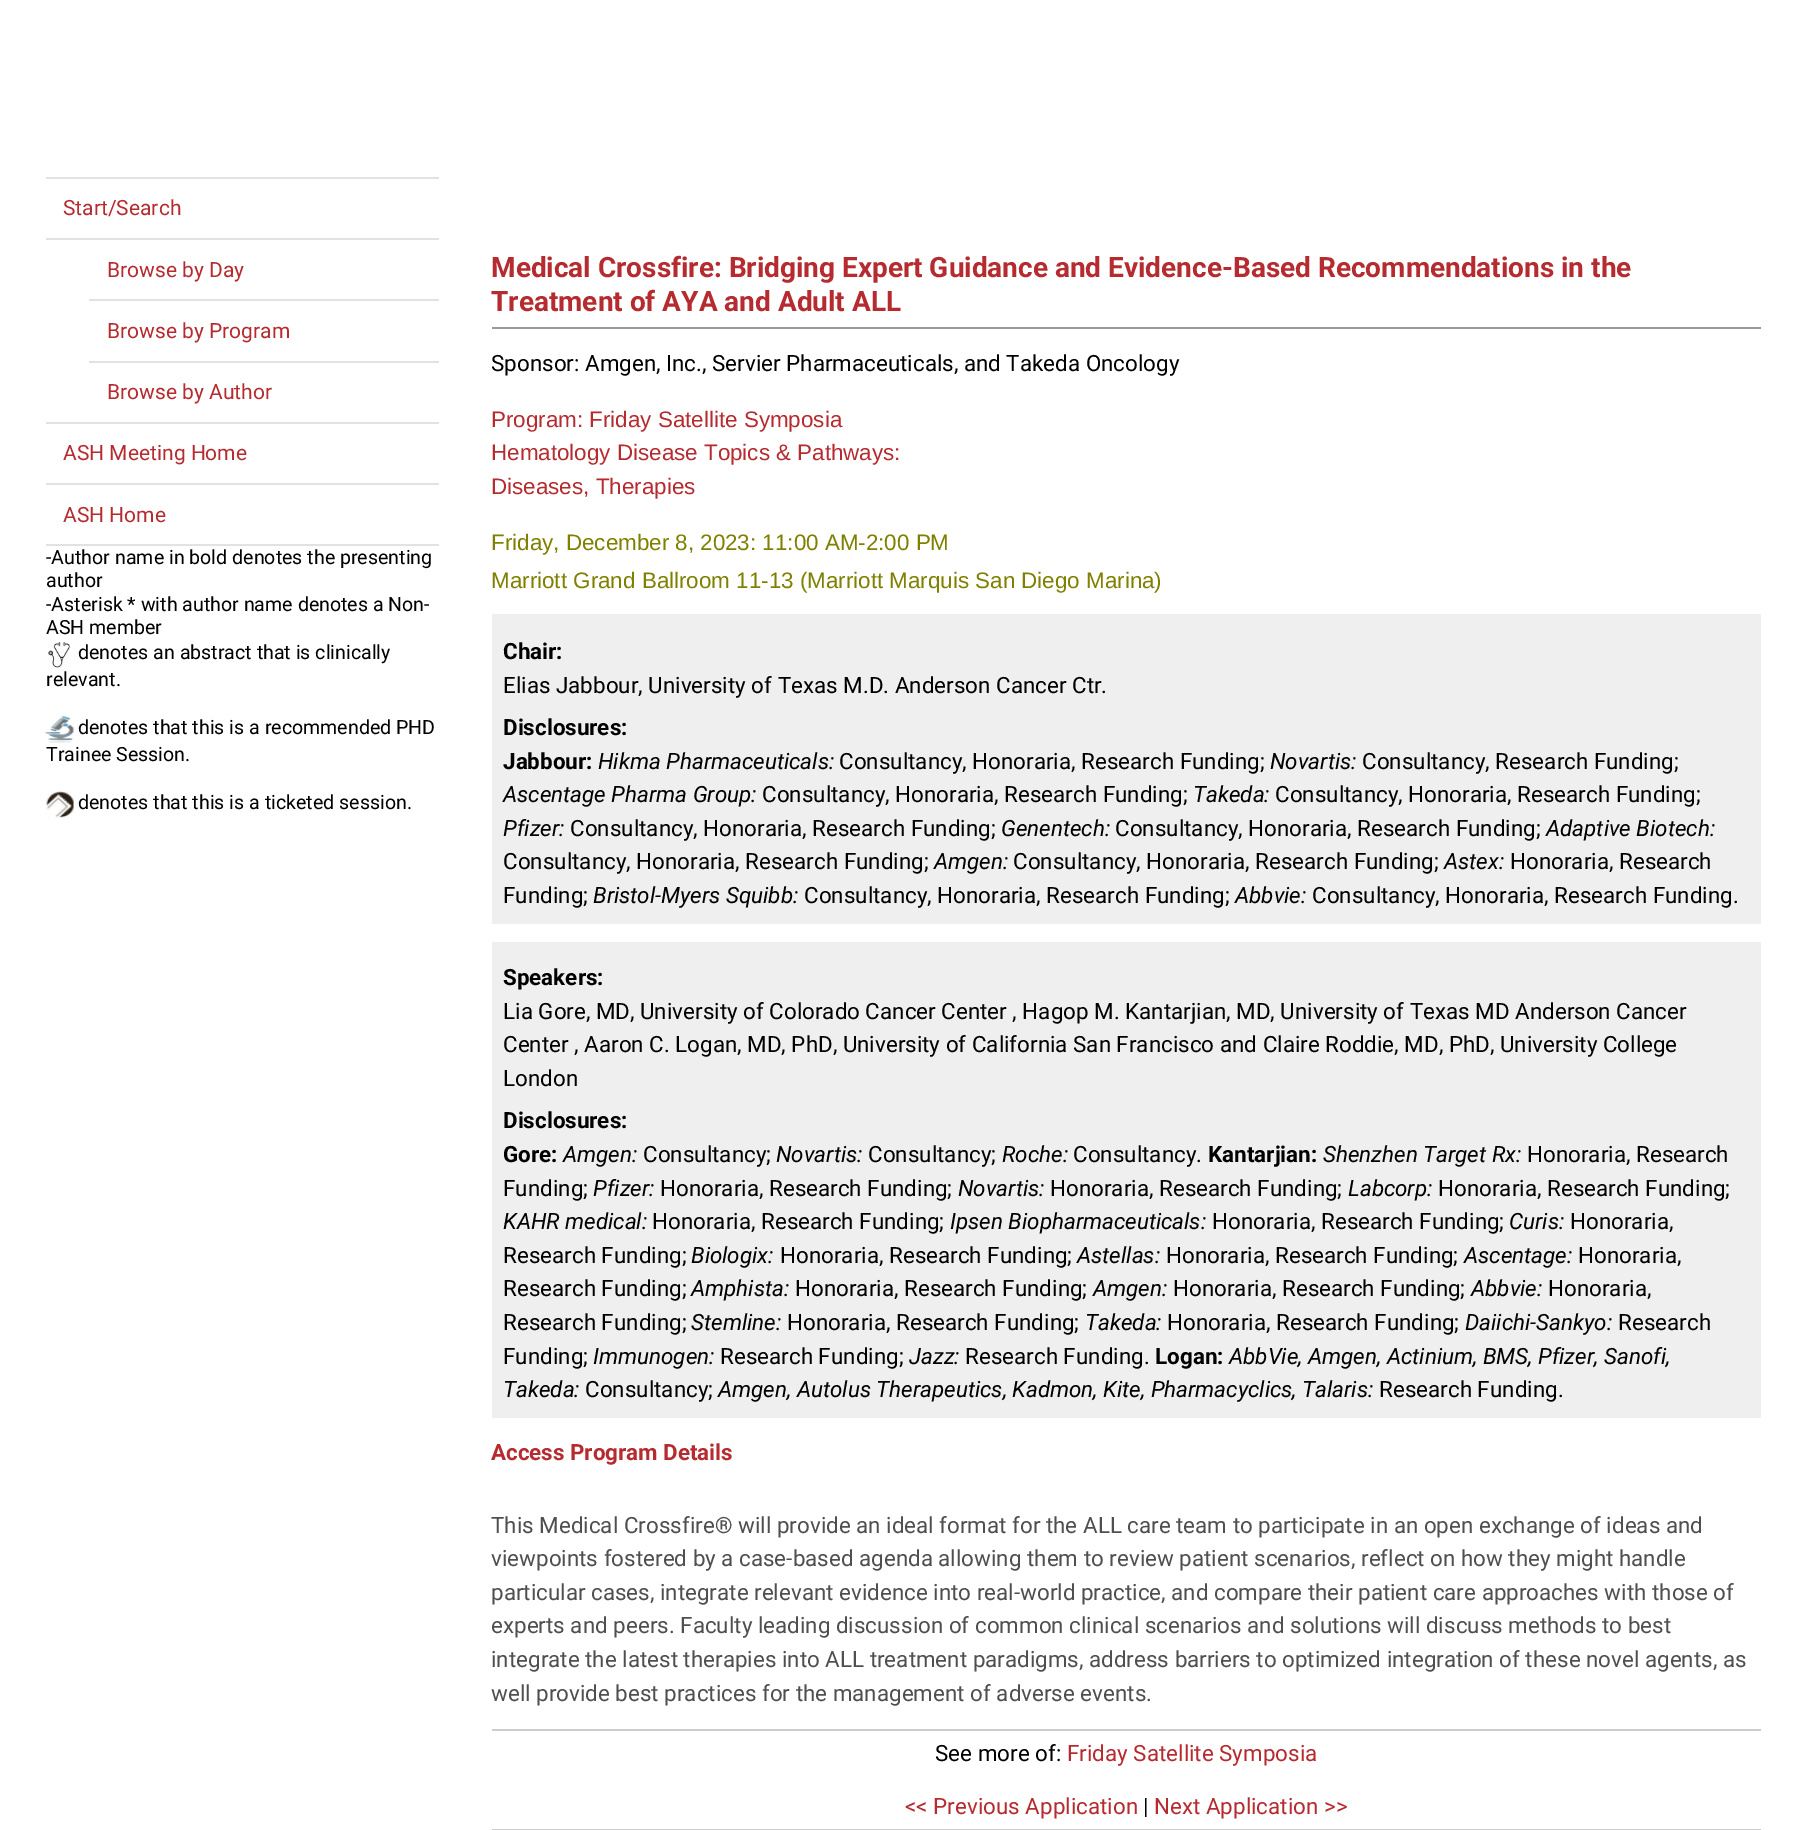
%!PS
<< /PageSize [1806 1830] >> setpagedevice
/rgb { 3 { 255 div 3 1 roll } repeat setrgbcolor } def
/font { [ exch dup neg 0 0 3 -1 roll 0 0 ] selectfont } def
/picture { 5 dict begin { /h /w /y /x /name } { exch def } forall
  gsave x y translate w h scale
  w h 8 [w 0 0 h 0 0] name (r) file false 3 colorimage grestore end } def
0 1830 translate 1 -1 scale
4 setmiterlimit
255 255 255 rgb
0 0 1806 1830 rectfill
[
  [46 177 393 2 226 226 226]
  [46 238 393 2 226 226 226]
  [89 299 350 2 226 226 226]
  [89 361 350 2 226 226 226]
  [46 422 393 2 226 226 226]
  [46 483 393 2 226 226 226]
  [46 544 393 2 226 226 226]
] { aload pop rgb rectfill } forall
(img/1.rgb) 48 642 22 26 picture
(img/2.rgb) 45 716 29 28 picture
(img/3.rgb) 46 791 28 28 picture
[
  [492 327 1269 2 153 153 153]
  [492 614 1269 310 239 239 239]
  [492 942 1269 476 239 239 239]
  [492 1729 1269 2 204 204 204]
  [492 1829 1269 1 204 204 204]
] { aload pop rgb rectfill } forall
/Roboto-Regular 21 font
182 43 48 rgb
[
  [(Start/Search) 63 215]
  [(Browse by Day) 107 277]
  [(Browse by Program) 107 338]
  [(Browse by Author) 107 399]
  [(ASH Meeting Home) 63 460]
  [(ASH Home) 63 522]
] { aload pop moveto show } forall
/Roboto-Regular 19.6 font
0 0 0 rgb
[
  [(-Author name in bold denotes the presenting) 46 564]
  [(author) 46 587]
  [(-Asterisk * with author name denotes a Non-) 46 611]
  [(ASH member) 46 634]
  [(denotes an abstract that is clinically) 78 659]
  [(relevant.) 46 686]
  [(denotes that this is a recommended PHD) 78 734]
  [(Trainee Session.) 46 761]
  [(denotes that this is a ticketed session.) 78 809]
] { aload pop moveto show } forall
/Roboto-Bold 28 font
182 43 48 rgb
491 277 moveto (Medical Crossfire: Bridging Expert Guidance and Evidence-Based Recommendations in the) show
491 311 moveto (Treatment of AYA and Adult ALL) show
/Roboto-Regular 22.4 font
0 0 0 rgb
491 371 moveto (Sponsor: Amgen, Inc., Servier Pharmaceuticals, and Takeda Oncology) show
/LiberationSans-Regular 22.4 font
182 43 48 rgb
[
  [(Program: Friday Satellite Symposia) 491 427]
  [(Hematology Disease Topics & Pathways:) 491 460]
  [(Diseases, Therapies) 491 494]
] { aload pop moveto show } forall
128 128 0 rgb
491 550 moveto (Friday, December 8, 2023: 11:00 AM-2:00 PM) show
491 588 moveto (Marriott Grand Ballroom 11-13 \(Marriott Marquis San Diego Marina\)) show
/Roboto-Bold 22.4 font
0 0 0 rgb
503 659 moveto (Chair:) show
/Roboto-Regular 22.4 font
503 693 moveto (Elias Jabbour, University of Texas M.D. Anderson Cancer Ctr.) show
/Roboto-Bold 22.4 font
503 735 moveto (Disclosures:) show
503 769 moveto (Jabbour:) show
/Roboto-Italic 22.4 font
598 769 moveto (Hikma Pharmaceuticals:) show
/Roboto-Regular 22.4 font
839 769 moveto (Consultancy, Honoraria, Research Funding;) show
/Roboto-Italic 22.4 font
1270 769 moveto (Novartis:) show
/Roboto-Regular 22.4 font
1362 769 moveto (Consultancy, Research Funding;) show
/Roboto-Italic 22.4 font
503 802 moveto (Ascentage Pharma Group:) show
/Roboto-Regular 22.4 font
762 802 moveto (Consultancy, Honoraria, Research Funding;) show
/Roboto-Italic 22.4 font
1193 802 moveto (Takeda:) show
/Roboto-Regular 22.4 font
1275 802 moveto (Consultancy, Honoraria, Research Funding;) show
/Roboto-Italic 22.4 font
503 836 moveto (Pfizer:) show
/Roboto-Regular 22.4 font
570 836 moveto (Consultancy, Honoraria, Research Funding;) show
/Roboto-Italic 22.4 font
1001 836 moveto (Genentech:) show
/Roboto-Regular 22.4 font
1115 836 moveto (Consultancy, Honoraria, Research Funding;) show
/Roboto-Italic 22.4 font
1546 836 moveto (Adaptive Biotech:) show
/Roboto-Regular 22.4 font
503 869 moveto (Consultancy, Honoraria, Research Funding;) show
/Roboto-Italic 22.4 font
934 869 moveto (Amgen:) show
/Roboto-Regular 22.4 font
1013 869 moveto (Consultancy, Honoraria, Research Funding;) show
/Roboto-Italic 22.4 font
1444 869 moveto (Astex:) show
/Roboto-Regular 22.4 font
1510 869 moveto (Honoraria, Research) show
503 903 moveto (Funding;) show
/Roboto-Italic 22.4 font
593 903 moveto (Bristol-Myers Squibb:) show
/Roboto-Regular 22.4 font
804 903 moveto (Consultancy, Honoraria, Research Funding;) show
/Roboto-Italic 22.4 font
1235 903 moveto (Abbvie:) show
/Roboto-Regular 22.4 font
1312 903 moveto (Consultancy, Honoraria, Research Funding.) show
/Roboto-Bold 22.4 font
503 985 moveto (Speakers:) show
/Roboto-Regular 22.4 font
[
  [(Lia Gore, MD, University of Colorado Cancer Center , Hagop M. Kantarjian, MD, University of Texas MD Anderson Cancer) 503 1019]
  [(Center , Aaron C. Logan, MD, PhD, University of California San Francisco and Claire Roddie, MD, PhD, University College) 503 1052]
  [(London) 503 1086]
] { aload pop moveto show } forall
/Roboto-Bold 22.4 font
503 1128 moveto (Disclosures:) show
503 1162 moveto (Gore:) show
/Roboto-Italic 22.4 font
563 1162 moveto (Amgen:) show
/Roboto-Regular 22.4 font
643 1162 moveto (Consultancy;) show
/Roboto-Italic 22.4 font
776 1162 moveto (Novartis:) show
/Roboto-Regular 22.4 font
868 1162 moveto (Consultancy;) show
/Roboto-Italic 22.4 font
1002 1162 moveto (Roche:) show
/Roboto-Regular 22.4 font
1073 1162 moveto (Consultancy.) show
/Roboto-Bold 22.4 font
1208 1162 moveto (Kantarjian:) show
/Roboto-Italic 22.4 font
1323 1162 moveto (Shenzhen Target Rx:) show
/Roboto-Regular 22.4 font
1527 1162 moveto (Honoraria, Research) show
503 1196 moveto (Funding;) show
/Roboto-Italic 22.4 font
593 1196 moveto (Pfizer:) show
/Roboto-Regular 22.4 font
660 1196 moveto (Honoraria, Research Funding;) show
/Roboto-Italic 22.4 font
958 1196 moveto (Novartis:) show
/Roboto-Regular 22.4 font
1050 1196 moveto (Honoraria, Research Funding;) show
/Roboto-Italic 22.4 font
1348 1196 moveto (Labcorp:) show
/Roboto-Regular 22.4 font
1438 1196 moveto (Honoraria, Research Funding;) show
/Roboto-Italic 22.4 font
503 1229 moveto (KAHR medical:) show
/Roboto-Regular 22.4 font
652 1229 moveto (Honoraria, Research Funding;) show
/Roboto-Italic 22.4 font
950 1229 moveto (Ipsen Biopharmaceuticals:) show
/Roboto-Regular 22.4 font
1212 1229 moveto (Honoraria, Research Funding;) show
/Roboto-Italic 22.4 font
1509 1229 moveto (Curis:) show
/Roboto-Regular 22.4 font
1570 1229 moveto (Honoraria,) show
503 1263 moveto (Research Funding;) show
/Roboto-Italic 22.4 font
691 1263 moveto (Biologix:) show
/Roboto-Regular 22.4 font
780 1263 moveto (Honoraria, Research Funding;) show
/Roboto-Italic 22.4 font
1077 1263 moveto (Astellas:) show
/Roboto-Regular 22.4 font
1166 1263 moveto (Honoraria, Research Funding;) show
/Roboto-Italic 22.4 font
1464 1263 moveto (Ascentage:) show
/Roboto-Regular 22.4 font
1578 1263 moveto (Honoraria,) show
503 1296 moveto (Research Funding;) show
/Roboto-Italic 22.4 font
691 1296 moveto (Amphista:) show
/Roboto-Regular 22.4 font
795 1296 moveto (Honoraria, Research Funding;) show
/Roboto-Italic 22.4 font
1093 1296 moveto (Amgen:) show
/Roboto-Regular 22.4 font
1173 1296 moveto (Honoraria, Research Funding;) show
/Roboto-Italic 22.4 font
1471 1296 moveto (Abbvie:) show
/Roboto-Regular 22.4 font
1548 1296 moveto (Honoraria,) show
503 1330 moveto (Research Funding;) show
/Roboto-Italic 22.4 font
691 1330 moveto (Stemline:) show
/Roboto-Regular 22.4 font
787 1330 moveto (Honoraria, Research Funding;) show
/Roboto-Italic 22.4 font
1085 1330 moveto (Takeda:) show
/Roboto-Regular 22.4 font
1167 1330 moveto (Honoraria, Research Funding;) show
/Roboto-Italic 22.4 font
1465 1330 moveto (Daiichi-Sankyo:) show
/Roboto-Regular 22.4 font
1618 1330 moveto (Research) show
503 1364 moveto (Funding;) show
/Roboto-Italic 22.4 font
593 1364 moveto (Immunogen:) show
/Roboto-Regular 22.4 font
720 1364 moveto (Research Funding;) show
/Roboto-Italic 22.4 font
909 1364 moveto (Jazz:) show
/Roboto-Regular 22.4 font
965 1364 moveto (Research Funding.) show
/Roboto-Bold 22.4 font
1155 1364 moveto (Logan:) show
/Roboto-Italic 22.4 font
1229 1364 moveto (AbbVie, Amgen, Actinium, BMS, Pfizer, Sanofi,) show
503 1397 moveto (Takeda:) show
/Roboto-Regular 22.4 font
585 1397 moveto (Consultancy;) show
/Roboto-Italic 22.4 font
718 1397 moveto (Amgen, Autolus Therapeutics, Kadmon, Kite, Pharmacyclics, Talaris:) show
/Roboto-Regular 22.4 font
1379 1397 moveto (Research Funding.) show
/Roboto-Bold 22.4 font
182 43 48 rgb
491 1460 moveto (Access Program Details) show
/Roboto-Regular 22.4 font
79 79 79 rgb
491 1533 moveto (This Medical Crossfire) show
/Roboto-Bold 22.4 font
715 1533 moveto (®) show
/Roboto-Regular 22.4 font
[
  [(will provide an ideal format for the ALL care team to participate in an open exchange of ideas and) 738 1533]
  [(viewpoints fostered by a case-based agenda allowing them to review patient scenarios, reflect on how they might handle) 491 1566]
  [(particular cases, integrate relevant evidence into real-world practice, and compare their patient care approaches with those of) 491 1600]
  [(experts and peers. Faculty leading discussion of common clinical scenarios and solutions will discuss methods to best) 491 1633]
  [(integrate the latest therapies into ALL treatment paradigms, address barriers to optimized integration of these novel agents, as) 491 1667]
  [(well provide best practices for the management of adverse events.) 491 1701]
] { aload pop moveto show } forall
0 0 0 rgb
935 1761 moveto (See more of:) show
182 43 48 rgb
1067 1761 moveto (Friday Satellite Symposia) show
905 1814 moveto (<< Previous Application) show
0 0 0 rgb
1143 1814 moveto (|) show
182 43 48 rgb
1154 1814 moveto (Next Application >>) show
showpage
